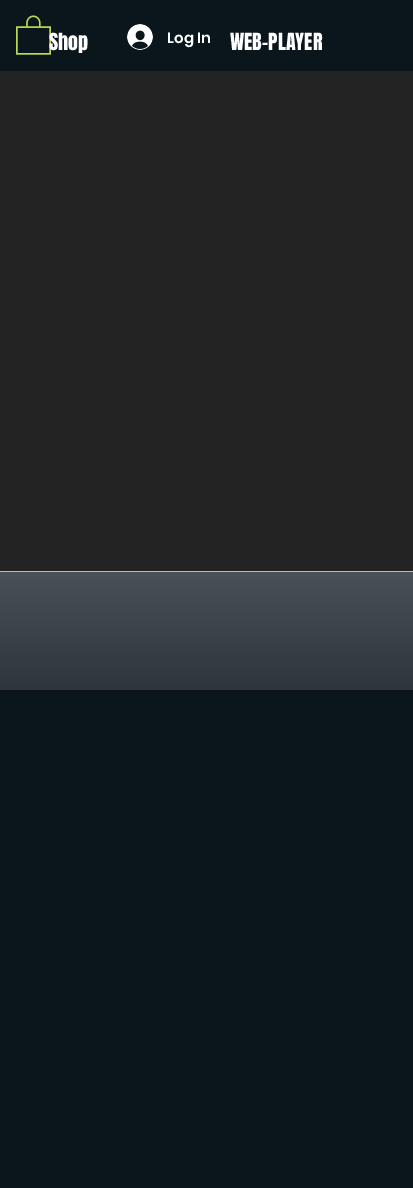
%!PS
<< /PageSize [413 1188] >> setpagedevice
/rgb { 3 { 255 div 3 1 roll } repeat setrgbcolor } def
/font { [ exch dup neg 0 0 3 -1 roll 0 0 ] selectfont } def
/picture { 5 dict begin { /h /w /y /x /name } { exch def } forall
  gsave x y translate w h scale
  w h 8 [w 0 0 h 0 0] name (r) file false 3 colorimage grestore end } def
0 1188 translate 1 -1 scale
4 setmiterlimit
10 21 28 rgb
0 0 413 1188 rectfill
(img/1.rgb) 16 15 35 40 picture
(img/2.rgb) 127 24 26 26 picture
35 35 35 rgb
0 71 413 500 rectfill
(img/3.rgb) 0 572 413 118 picture
17 21 24 rgb
0 690 413 1 rectfill
182 186 188 rgb
0 571 413 1 rectfill
/Anton-Regular 20 font
255 255 255 rgb
49 50 moveto (Shop) show
230 50 moveto (WEB-PLAYER) show
/Poppins-SemiBold 15 font
167 43 moveto (Log In) show
showpage
